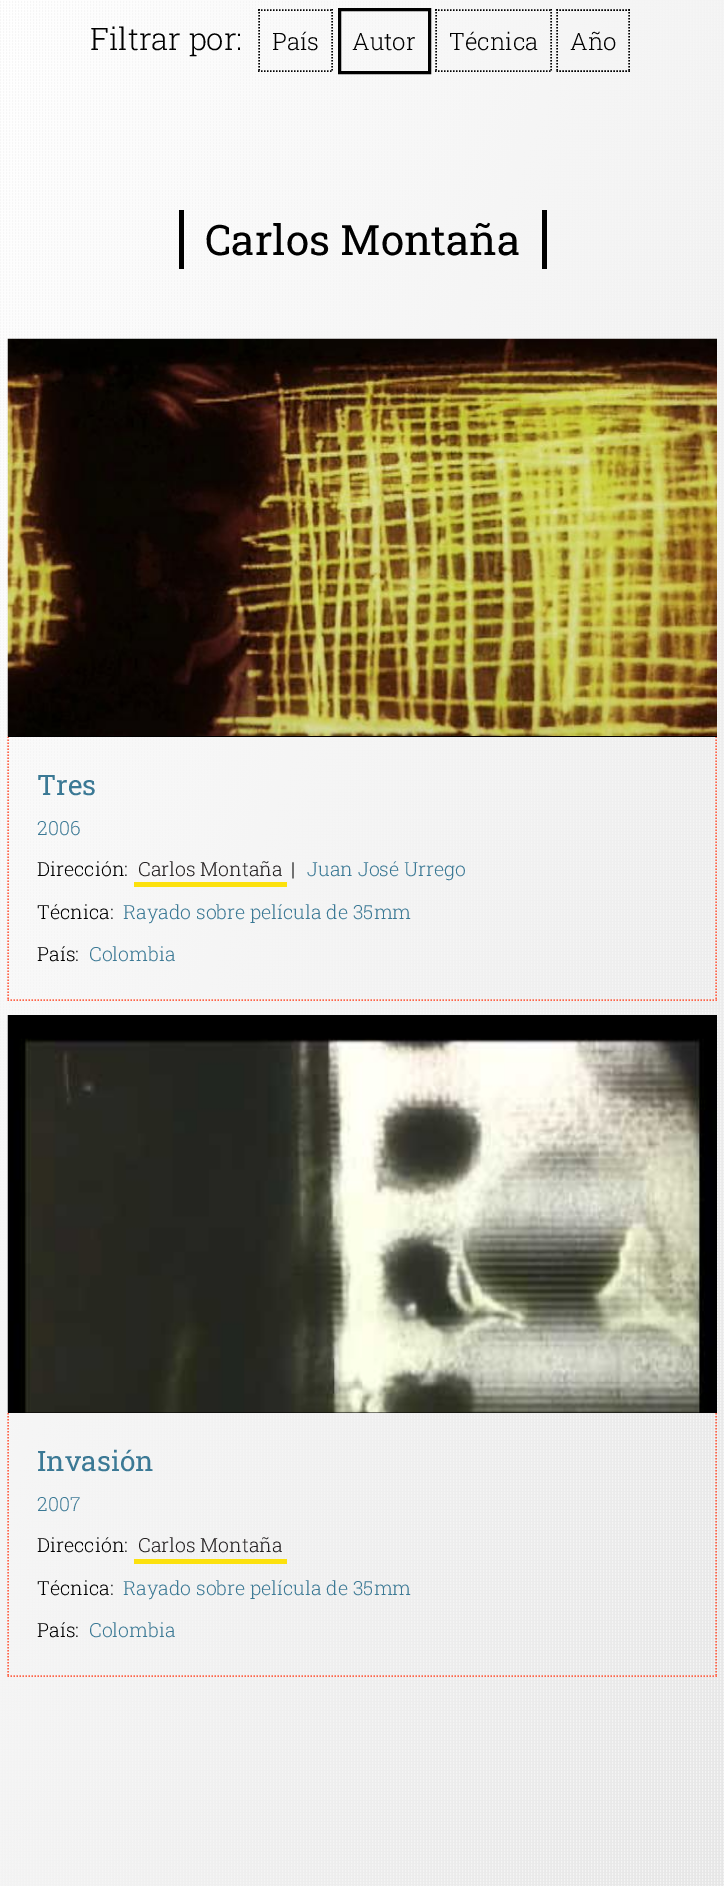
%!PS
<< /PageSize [724 1886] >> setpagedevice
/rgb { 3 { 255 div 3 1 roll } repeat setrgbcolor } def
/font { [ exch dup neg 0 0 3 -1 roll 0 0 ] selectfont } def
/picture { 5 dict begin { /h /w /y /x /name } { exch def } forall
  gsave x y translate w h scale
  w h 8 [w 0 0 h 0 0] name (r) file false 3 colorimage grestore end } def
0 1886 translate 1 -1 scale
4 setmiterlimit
255 255 255 rgb
0 0 724 1886 rectfill
(img/1.rgb) 0 0 724 1886 picture
0 0 0 rgb
1.5 setlinewidth
[1.5 1.5] 0 setdash
258 10 moveto 333 10 lineto stroke
332 9 moveto 332 72 lineto stroke
258 71 moveto 333 71 lineto stroke
259 9 moveto 259 72 lineto stroke
3 setlinewidth
[] 0 setdash
339.5 9.5 90 63 rectstroke
1.5 setlinewidth
[1.5 1.5] 0 setdash
435 10 moveto 552 10 lineto stroke
551 9 moveto 551 72 lineto stroke
435 71 moveto 552 71 lineto stroke
436 9 moveto 436 72 lineto stroke
556.5 10 moveto 630 10 lineto stroke
629 9 moveto 629 72 lineto stroke
556.5 71 moveto 630 71 lineto stroke
557 9 moveto 557 72 lineto stroke
542 210 5 59 rectfill
179 210 5 59 rectfill
255 99 71 rgb
716 736.5 moveto 716 1000.5 lineto stroke
8 736.5 moveto 8 1000.5 lineto stroke
0 0 0 rgb
8 736 709 1 rectfill
(img/2.rgb) 7 338 710 398 picture
255 99 71 rgb
7.5 1000 moveto 717 1000 lineto stroke
252 225 13 rgb
134 882 153 5 rectfill
0 0 0 rgb
8 1412 709 1 rectfill
(img/3.rgb) 7 1015 710 398 picture
255 99 71 rgb
716 1413 moveto 716 1677 lineto stroke
7.5 1676 moveto 717 1676 lineto stroke
8 1413 moveto 8 1677 lineto stroke
252 225 13 rgb
134 1559 153 5 rectfill
/RobotoSlab-Light 31 font
0 0 0 rgb
90 50 moveto (Filtrar por:) show
/RobotoSlab-Light 24 font
[
  [(País) 272 50]
  [(Autor) 352 50]
  [(Técnica) 449 50]
  [(Año) 570 50]
] { aload pop moveto show } forall
/RobotoSlab-Regular 42 font
205 255 moveto (Carlos Montaña) show
/RobotoSlab-Regular 28 font
59 121 149 rgb
37 795 moveto (Tres) show
/RobotoSlab-Light 19.5 font
37 835 moveto (2006) show
0 0 0 rgb
37 876 moveto (Dirección:) show
35 31 32 rgb
138 876 moveto (Carlos Montaña) show
0 0 0 rgb
291 876 moveto (|) show
59 121 149 rgb
307 876 moveto (Juan José Urrego) show
0 0 0 rgb
37 919 moveto (Técnica:) show
59 121 149 rgb
123 919 moveto (Rayado sobre película de 35mm) show
0 0 0 rgb
37 961 moveto (País:) show
59 121 149 rgb
89 961 moveto (Colombia) show
/RobotoSlab-Regular 28 font
37 1471 moveto (Invasión) show
/RobotoSlab-Light 19.5 font
37 1511 moveto (2007) show
0 0 0 rgb
37 1552 moveto (Dirección:) show
35 31 32 rgb
138 1552 moveto (Carlos Montaña) show
0 0 0 rgb
37 1595 moveto (Técnica:) show
59 121 149 rgb
123 1595 moveto (Rayado sobre película de 35mm) show
0 0 0 rgb
37 1637 moveto (País:) show
59 121 149 rgb
89 1637 moveto (Colombia) show
showpage
